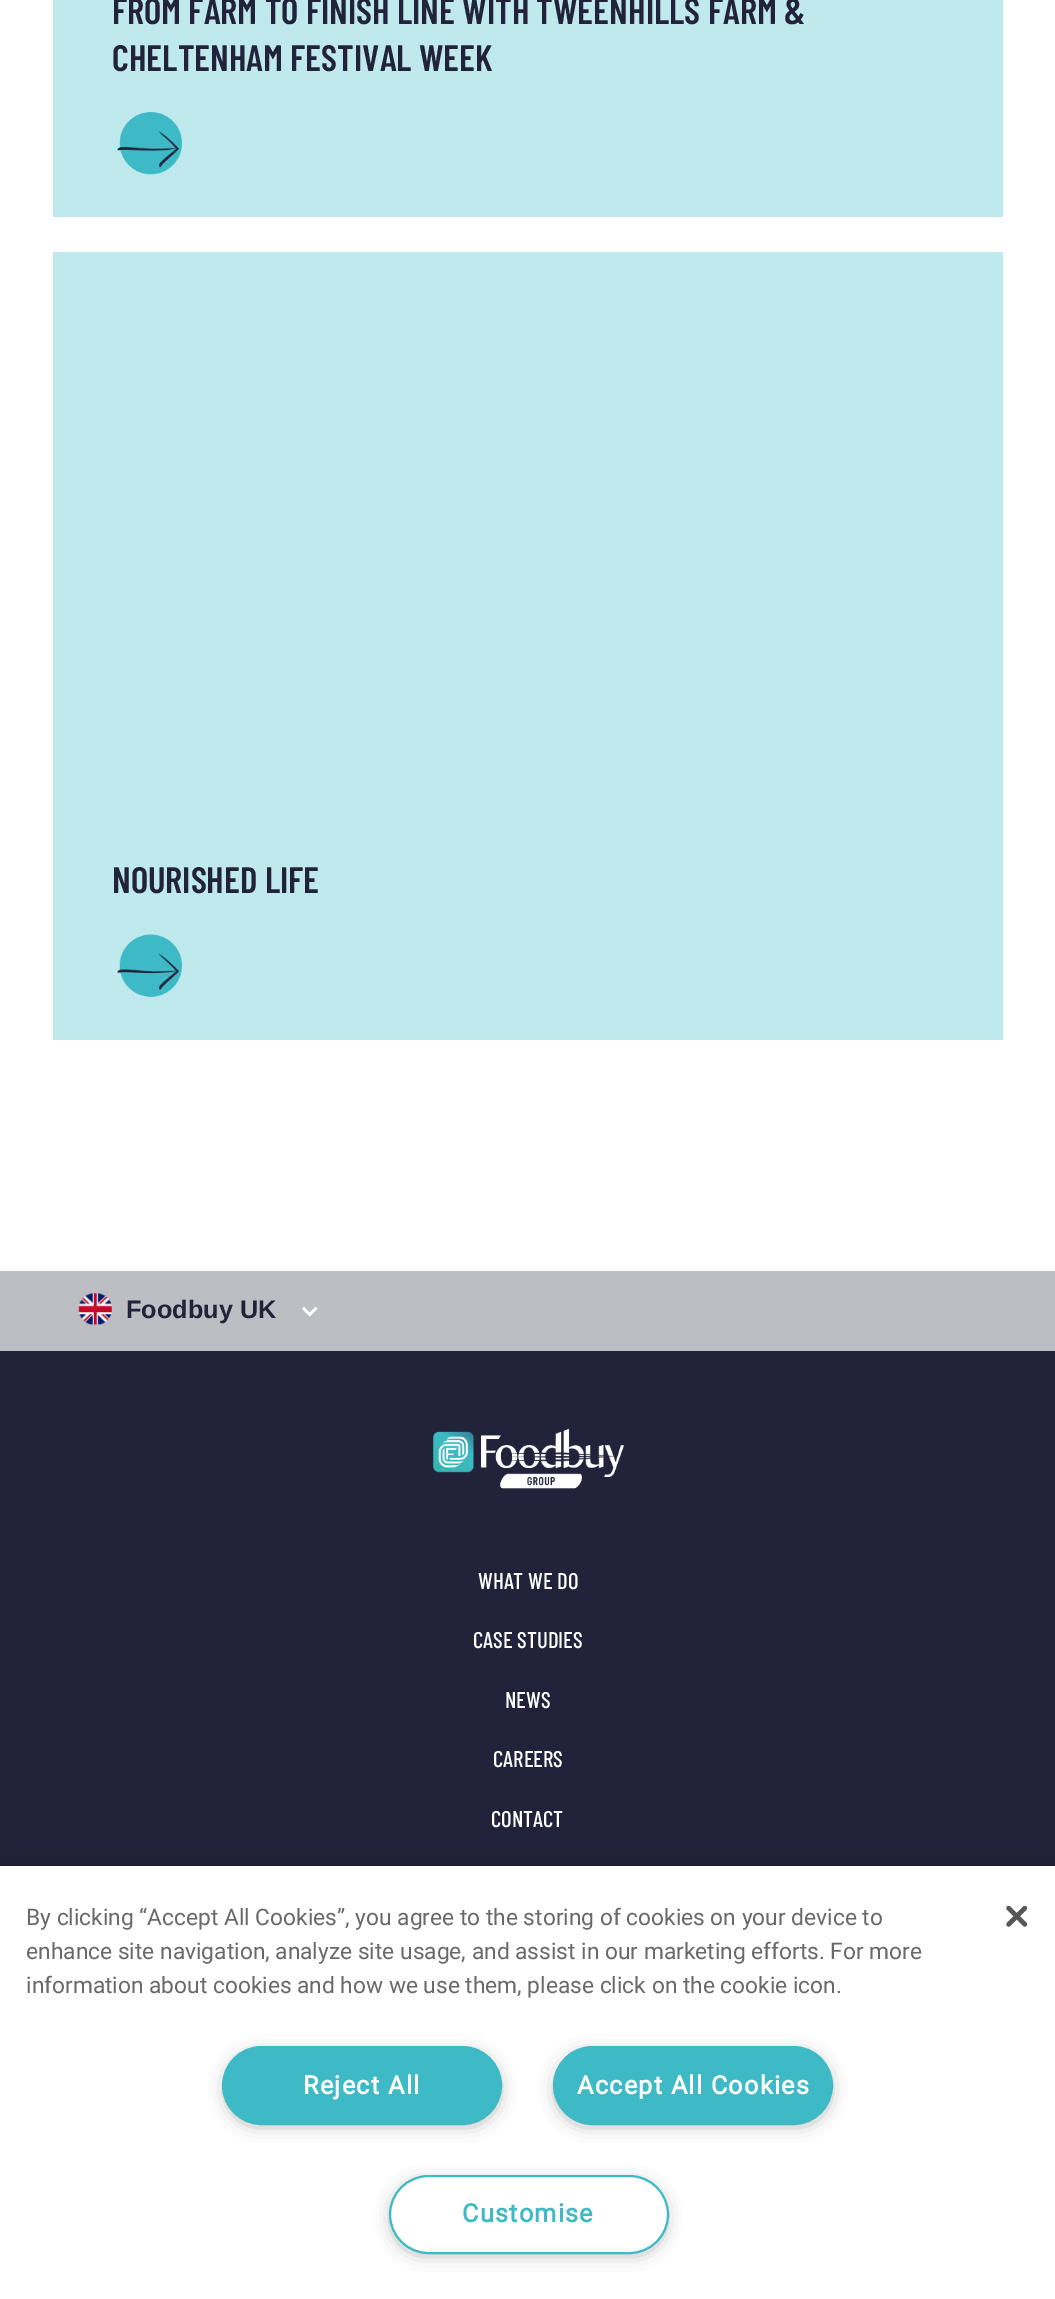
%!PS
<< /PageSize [1055 2299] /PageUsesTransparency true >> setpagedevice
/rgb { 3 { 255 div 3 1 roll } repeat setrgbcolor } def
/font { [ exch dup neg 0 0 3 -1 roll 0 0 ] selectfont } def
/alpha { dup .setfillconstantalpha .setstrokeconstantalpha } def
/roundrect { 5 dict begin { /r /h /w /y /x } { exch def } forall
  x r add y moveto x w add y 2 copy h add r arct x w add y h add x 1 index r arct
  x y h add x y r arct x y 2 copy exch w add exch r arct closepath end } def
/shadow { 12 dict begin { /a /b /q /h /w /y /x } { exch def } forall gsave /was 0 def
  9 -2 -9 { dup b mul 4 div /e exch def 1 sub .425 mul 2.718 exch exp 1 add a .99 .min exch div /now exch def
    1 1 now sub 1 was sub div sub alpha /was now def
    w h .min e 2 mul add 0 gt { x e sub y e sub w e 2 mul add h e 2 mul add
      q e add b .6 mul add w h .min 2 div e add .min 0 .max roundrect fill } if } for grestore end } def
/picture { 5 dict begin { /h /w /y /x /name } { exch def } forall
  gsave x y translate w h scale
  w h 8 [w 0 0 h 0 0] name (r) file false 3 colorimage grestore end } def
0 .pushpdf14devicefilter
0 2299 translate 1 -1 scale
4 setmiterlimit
255 255 255 rgb
0 0 1055 2299 rectfill
191 233 237 rgb
53 0 950 217 rectfill
(img/1.rgb) 117 112 65 63 picture
192 233 237 rgb
53 252 950 788 rectfill
(img/2.rgb) 117 934 65 63 picture
189 189 196 rgb
0 1271 1055 80 rectfill
(img/3.rgb) 78 1293 35 33 picture
(img/4.rgb) 302 1306 16 11 picture
34 34 58 rgb
0 1351 1055 515 rectfill
(img/5.rgb) 433 1428 191 61 picture
0 0 0 rgb
0 1866 1055 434 0 16 0.2 shadow
255 255 255 rgb
0 1866 1055 433 rectfill
153 153 153 rgb
228 2055 269 68 34 9 1 shadow
61 186 198 rgb
223 2047 278 77 38.5 roundrect gsave fill grestore
2 setlinewidth
stroke
153 153 153 rgb
558 2055 270 68 34 9 1 shadow
61 186 198 rgb
554 2047 278 77 38.5 roundrect gsave fill grestore
stroke
153 153 153 rgb
394 2184 269 68 34 9 1 shadow
255 255 255 rgb
390 2176 278 77 38.5 roundrect gsave fill grestore
61 186 198 rgb
stroke
(img/6.rgb) 1006 1906 21 21 picture
/BarlowCondensed-SemiBold 36.75 font
34 34 58 rgb
[
  [(FROM FARM TO FINISH LINE WITH TWEENHILLS FARM &) 112 24]
  [(CHELTENHAM FESTIVAL WEEK) 112 71]
  [(NOURISHED LIFE) 112 893]
] { aload pop moveto show } forall
/LiberationSans-Bold 25.25 font
126 1318 moveto (Foodbuy UK) show
/BarlowCondensed-Medium 22.75 font
255 255 255 rgb
[
  [(WHAT WE DO) 478 1589]
  [(CASE STUDIES) 473 1648]
  [(NEWS) 505 1708]
  [(CAREERS) 493 1767]
  [(CONTACT) 491 1827]
] { aload pop moveto show } forall
/Roboto-Regular 22.75 font
105 105 105 rgb
[
  [(By clicking “Accept All Cookies”, you agree to the storing of cookies on your device to) 26 1925]
  [(enhance site navigation, analyze site usage, and assist in our marketing efforts. For more) 26 1959]
  [(information about cookies and how we use them, please click on the cookie icon.) 26 1993]
] { aload pop moveto show } forall
/Roboto-Bold 25.25 font
255 255 255 rgb
303 2094 moveto 1.25 0 (Reject All) ashow
577 2094 moveto 1.25 0 (Accept All Cookies) ashow
61 186 198 rgb
462 2222 moveto 1.25 0 (Customise) ashow
.poppdf14devicefilter showpage
